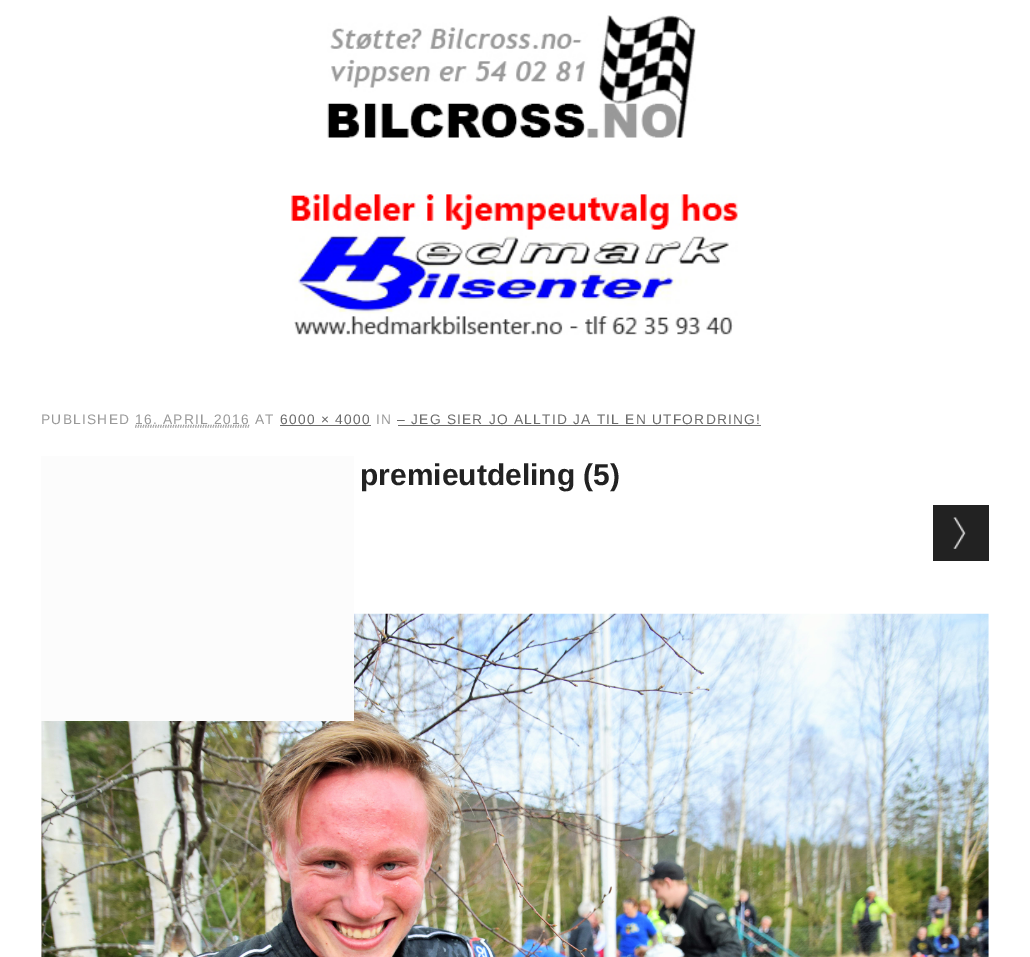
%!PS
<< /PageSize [1030 957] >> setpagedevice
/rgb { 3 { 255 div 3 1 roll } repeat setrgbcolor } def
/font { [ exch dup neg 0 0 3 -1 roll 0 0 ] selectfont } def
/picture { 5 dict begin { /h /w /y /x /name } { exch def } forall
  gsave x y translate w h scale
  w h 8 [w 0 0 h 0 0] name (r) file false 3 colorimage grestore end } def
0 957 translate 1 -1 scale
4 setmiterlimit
255 255 255 rgb
0 0 1030 957 rectfill
(img/1.rgb) 327 15 369 123 picture
(img/2.rgb) 290 194 448 141 picture
(img/4.rgb) 41 613 948 344 picture
252 252 252 rgb
41 456 313 265 rectfill
153 153 153 rgb
1.2 setlinewidth
[1.25 1.25] 0 setdash
135 427 moveto 250 427 lineto stroke
135.5 425.5 moveto 250 425.5 lineto stroke
[
  [280 425 91 1 107 107 107]
  [398 425 363 1 107 107 107]
  [933 505 56 56 34 34 34]
] { aload pop rgb rectfill } forall
(img/3.rgb) 953 517 13 32 picture
/LiberationSans-Regular 13.75 font
153 153 153 rgb
41 424 moveto 1.25 0 (PUBLISHED) ashow
135 424 moveto 1.25 0 (16. APRIL 2016 AT) ashow
107 107 107 rgb
280 424 moveto 1.25 0 (6000 × 4000) ashow
153 153 153 rgb
376 424 moveto 1.25 0 (IN) ashow
107 107 107 rgb
397 424 moveto 1.25 0 (– JEG SIER JO ALLTID JA TIL EN UTFORDRING!) ashow
/LiberationSans-Bold 30 font
34 34 34 rgb
360 485 moveto (premieutdeling \(5\)) show
showpage
